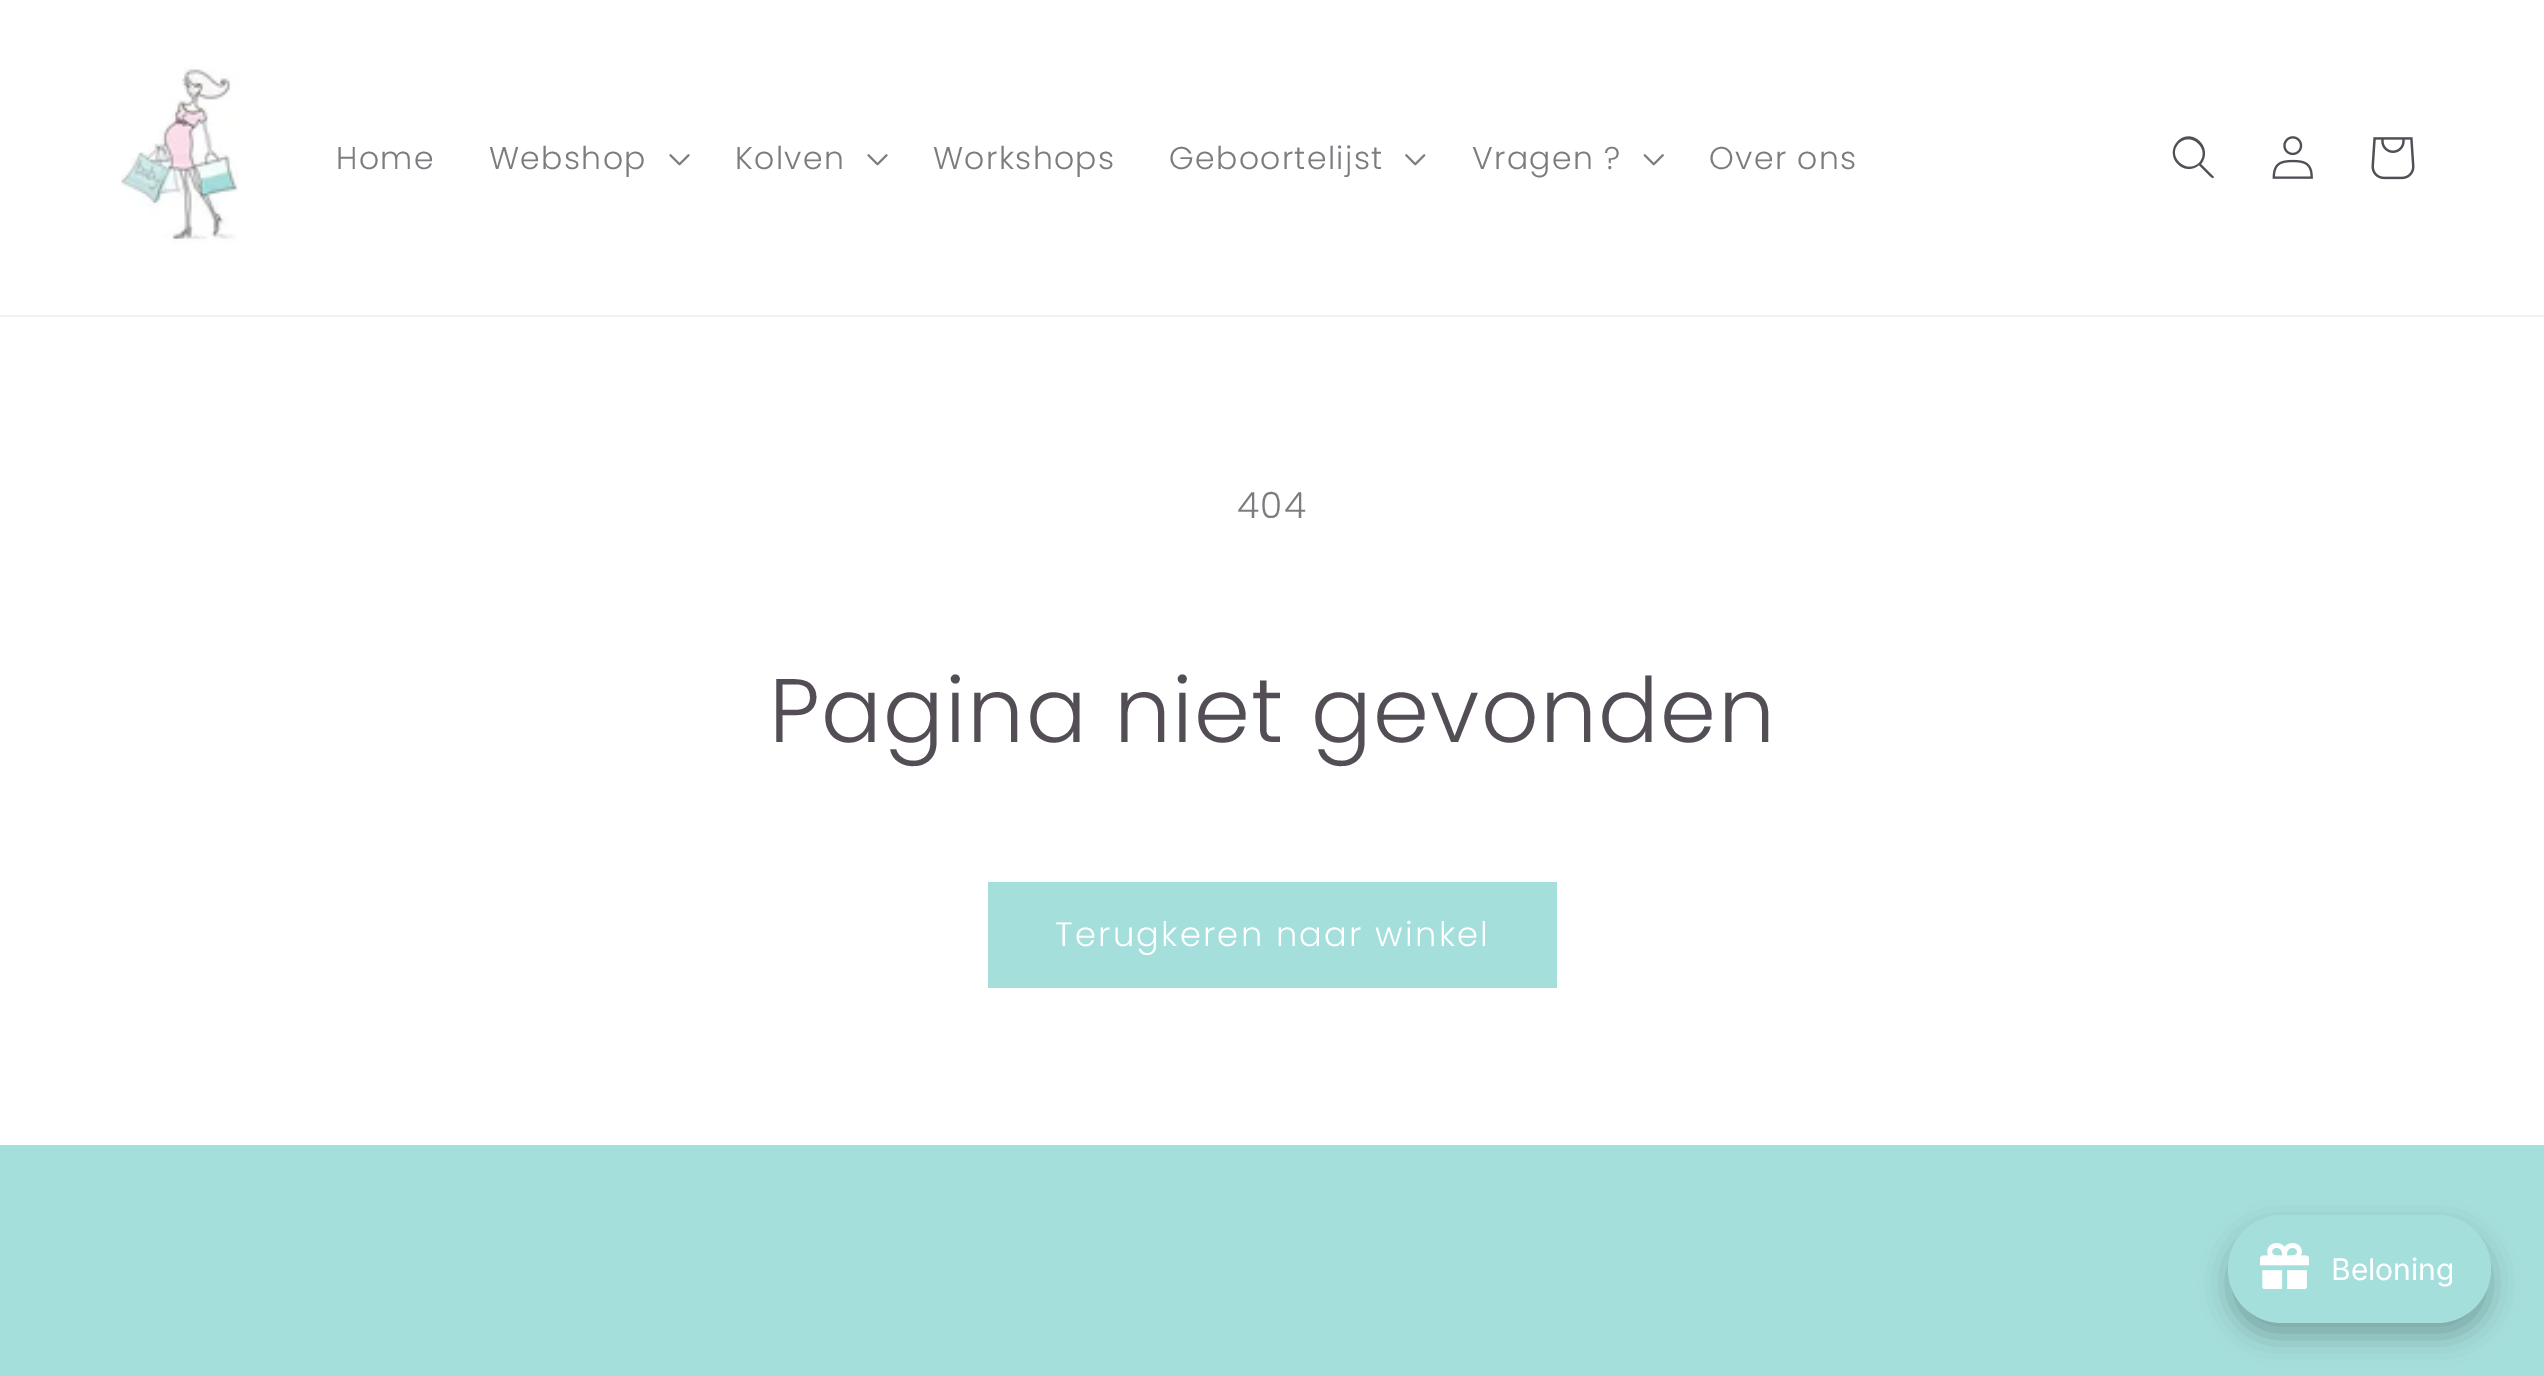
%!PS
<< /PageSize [2544 1376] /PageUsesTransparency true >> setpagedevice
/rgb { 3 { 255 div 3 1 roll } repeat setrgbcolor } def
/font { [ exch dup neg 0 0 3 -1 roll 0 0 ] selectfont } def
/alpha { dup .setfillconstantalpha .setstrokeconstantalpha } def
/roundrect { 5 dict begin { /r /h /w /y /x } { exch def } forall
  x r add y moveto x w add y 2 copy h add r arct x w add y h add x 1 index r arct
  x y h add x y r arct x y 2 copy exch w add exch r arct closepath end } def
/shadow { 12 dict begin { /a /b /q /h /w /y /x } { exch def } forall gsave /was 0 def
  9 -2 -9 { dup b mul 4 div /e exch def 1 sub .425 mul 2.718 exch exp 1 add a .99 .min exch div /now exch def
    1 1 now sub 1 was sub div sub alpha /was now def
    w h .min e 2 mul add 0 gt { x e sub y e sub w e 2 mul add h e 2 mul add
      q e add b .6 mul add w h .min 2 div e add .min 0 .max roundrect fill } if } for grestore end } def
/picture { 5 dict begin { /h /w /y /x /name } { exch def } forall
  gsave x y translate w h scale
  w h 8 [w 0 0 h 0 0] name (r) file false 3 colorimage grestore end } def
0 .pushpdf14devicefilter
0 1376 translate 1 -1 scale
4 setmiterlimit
255 255 255 rgb
0 0 2544 1376 rectfill
241 241 241 rgb
0 315 2544 2 rectfill
(img/1.rgb) 121 66 118 177 picture
(img/2.rgb) 669 154 21 12 picture
(img/2.rgb) 867 154 21 12 picture
(img/3.rgb) 1405 154 21 12 picture
(img/4.rgb) 1643 154 21 12 picture
83 77 86 rgb
2199 163 moveto 2186 175 2166 156 2179 143 curveto 2192 131 2211 150 2199 163 curveto closepath 2199 165 moveto 2184 178 2163 156 2178 141 curveto 2192 127 2214 148 2201 164 curveto 2214 177 lineto 2213 178 lineto 2212 179 2201 167 2199 165 curveto closepath eofill
(img/5.rgb) 2272 136 41 43 picture
(img/6.rgb) 2371 137 44 43 picture
165 223 220 rgb
988 882 569 106 rectfill
0 1145 2544 231 rectfill
0 0 0 rgb
2228 1229 263 108 54 13.5 0.25 shadow
165 223 220 rgb
2228 1215 263 108 54 roundrect fill
(img/7.rgb) 2260 1243 49 46 picture
/Poppins-Light 31.5 font
126 122 128 rgb
336 169 moveto 1.35 0 (Home) ashow
489 169 moveto 1.35 0 (Webshop) ashow
735 169 moveto 1.35 0 (Kolven) ashow
933 169 moveto 1.35 0 (Workshops) ashow
1169 169 moveto 1.35 0 (Geboortelijst) ashow
1472 169 moveto 1.35 0 (Vragen ?) ashow
1709 169 moveto 1.35 0 (Over ons) ashow
/Poppins-Light 36 font
1237 518 moveto 1.35 0 (404) ashow
/Poppins-Light 90 font
83 77 86 rgb
769 742 moveto 1.35 0 (Pagina niet gevonden) ashow
/Poppins-Light 33.75 font
255 255 255 rgb
1055 946 moveto 2.25 0 (Terugkeren naar winkel) ashow
/Inter-Regular 30 font
2331 1280 moveto (Beloning) show
.poppdf14devicefilter showpage
